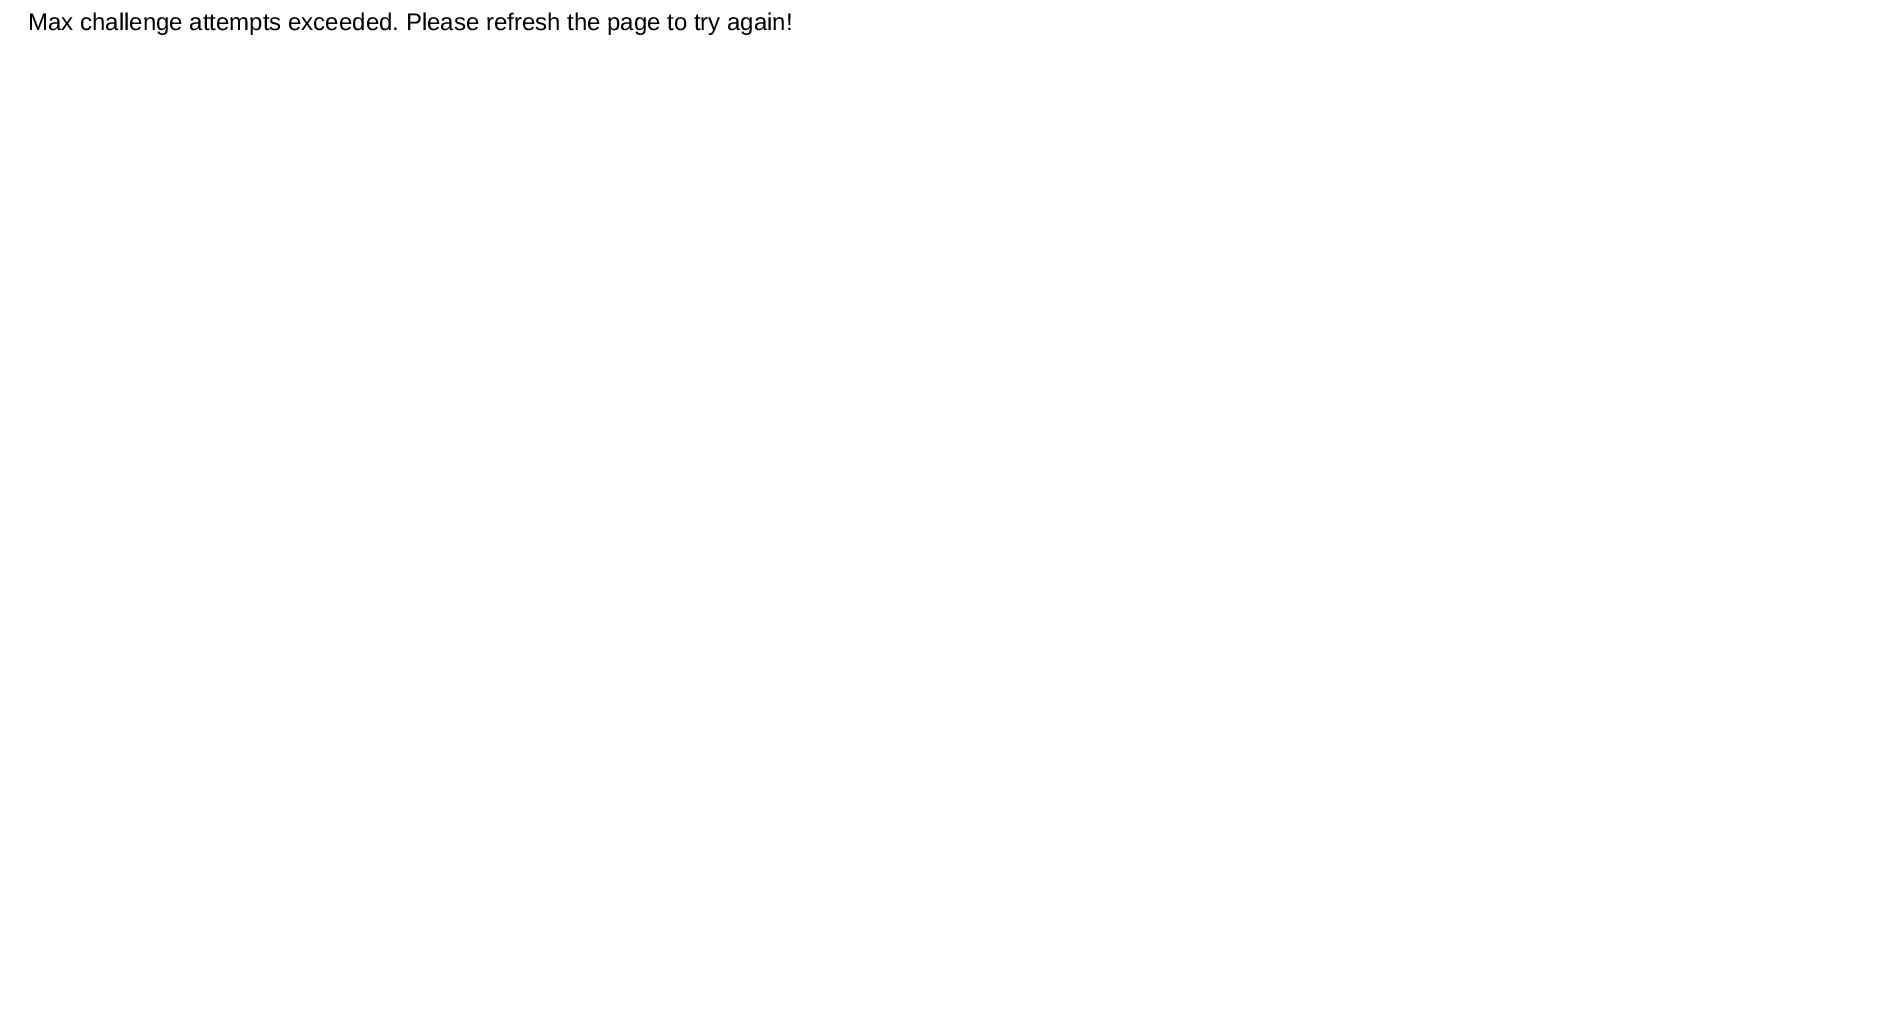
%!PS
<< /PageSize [1895 1034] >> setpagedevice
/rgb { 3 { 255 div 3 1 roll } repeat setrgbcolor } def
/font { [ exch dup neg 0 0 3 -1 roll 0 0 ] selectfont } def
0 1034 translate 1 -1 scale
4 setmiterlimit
255 255 255 rgb
0 0 1895 1034 rectfill
/LiberationSans-Regular 24 font
0 0 0 rgb
28 30 moveto (Max challenge attempts exceeded. Please refresh the page to try again!) show
showpage
